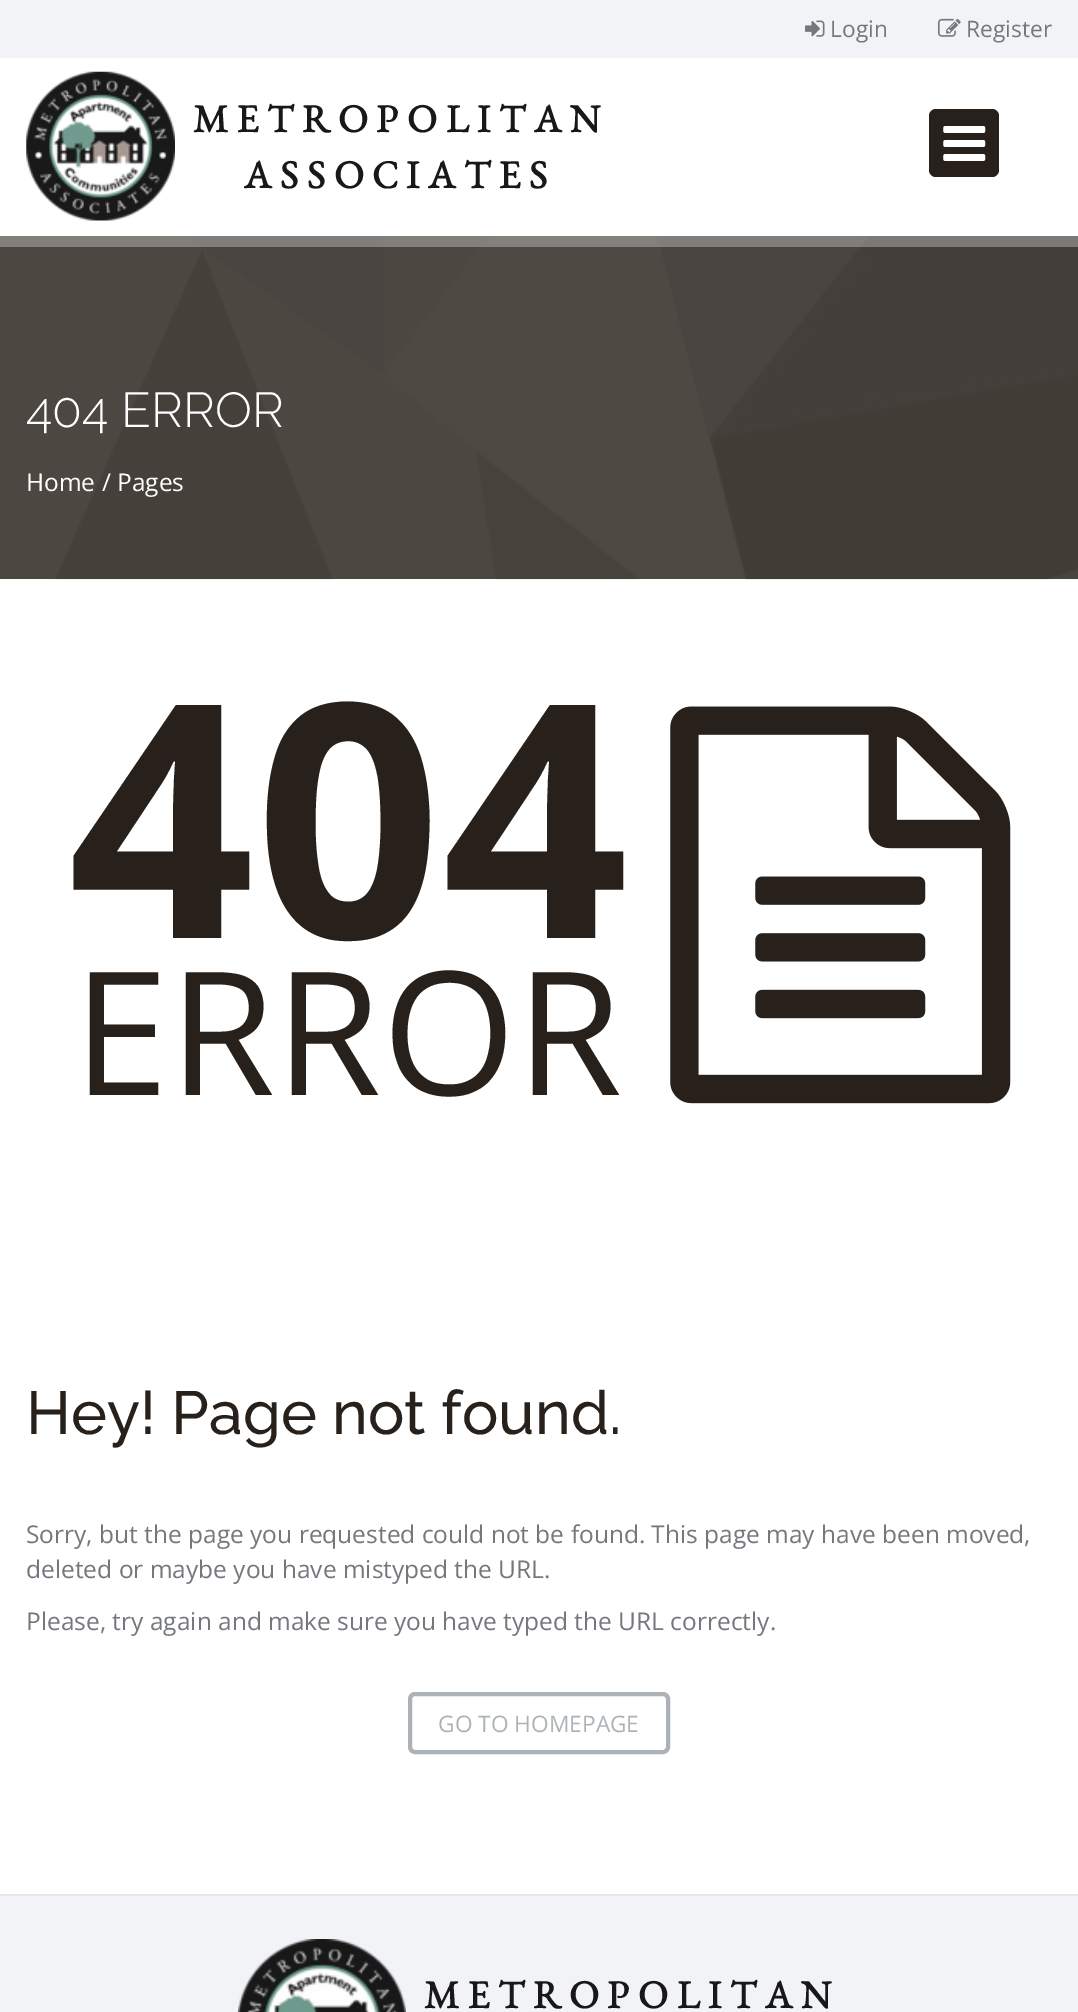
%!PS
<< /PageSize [1078 2012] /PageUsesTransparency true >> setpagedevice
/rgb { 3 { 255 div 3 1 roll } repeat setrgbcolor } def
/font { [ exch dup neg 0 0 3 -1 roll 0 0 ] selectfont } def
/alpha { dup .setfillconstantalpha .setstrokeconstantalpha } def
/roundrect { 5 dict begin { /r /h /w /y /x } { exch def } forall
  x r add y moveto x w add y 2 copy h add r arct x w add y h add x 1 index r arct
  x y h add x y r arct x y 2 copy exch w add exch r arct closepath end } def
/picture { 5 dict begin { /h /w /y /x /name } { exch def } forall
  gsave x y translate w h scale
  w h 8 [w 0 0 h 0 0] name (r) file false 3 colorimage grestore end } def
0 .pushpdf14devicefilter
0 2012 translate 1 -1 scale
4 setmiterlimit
255 255 255 rgb
0 0 1078 2012 rectfill
241 243 246 rgb
0 0 1078 58 rectfill
(img/1.rgb) 805 20 20 17 picture
(img/2.rgb) 938 18 23 19 picture
(img/3.rgb) 26 71 149 150 picture
40 33 27 rgb
929 109 70 68 7 roundrect fill
(img/4.rgb) 943 126 43 35 picture
(img/5.rgb) 0 236 1078 344 picture
0.3 alpha
255 255 255 rgb
0 236 1078 11 rectfill
1 alpha
(img/6.rgb) 670 706 341 398 picture
173 178 182 rgb
4 setlinewidth
410 1694 258 58 5 roundrect stroke
241 243 246 rgb
0 1896 1078 116 rectfill
229 231 234 rgb
0 1894 1078 2 rectfill
(img/7.rgb) 238 1939 168 73 picture
/OpenSans-Regular 22.75 font
116 119 124 rgb
830 37 moveto (Login) show
966 37 moveto (Register) show
/EBGaramond-Bold 39.25 font
24 24 25 rgb
193 132 moveto 8.75 0 (METROPOLITAN) ashow
244 188 moveto 8.75 0 (ASSOCIATES) ashow
/Raleway-Light 49 font
255 255 255 rgb
26 427 moveto (404 ERROR) show
/OpenSans-Regular 24.5 font
26 491 moveto (Home / Pages) show
/OpenSans-Bold 327 font
40 33 27 rgb
68 938 moveto (404) show
/OpenSans-Regular 172.5 font
73 1095 moveto (ERROR) show
/Raleway-Medium 60.75 font
26 1434 moveto (Hey! Page not found.) show
/OpenSans-Regular 24.5 font
116 119 124 rgb
[
  [(Sorry, but the page you requested could not be found. This page may have been moved,) 26 1543]
  [(deleted or maybe you have mistyped the URL.) 26 1578]
  [(Please, try again and make sure you have typed the URL correctly.) 26 1630]
] { aload pop moveto show } forall
/OpenSans-Regular 22.75 font
173 178 182 rgb
438 1732 moveto (GO TO HOMEPAGE) show
/EBGaramond-Bold 39.25 font
24 24 25 rgb
424 2008 moveto 8.75 0 (METROPOLITAN) ashow
.poppdf14devicefilter showpage
